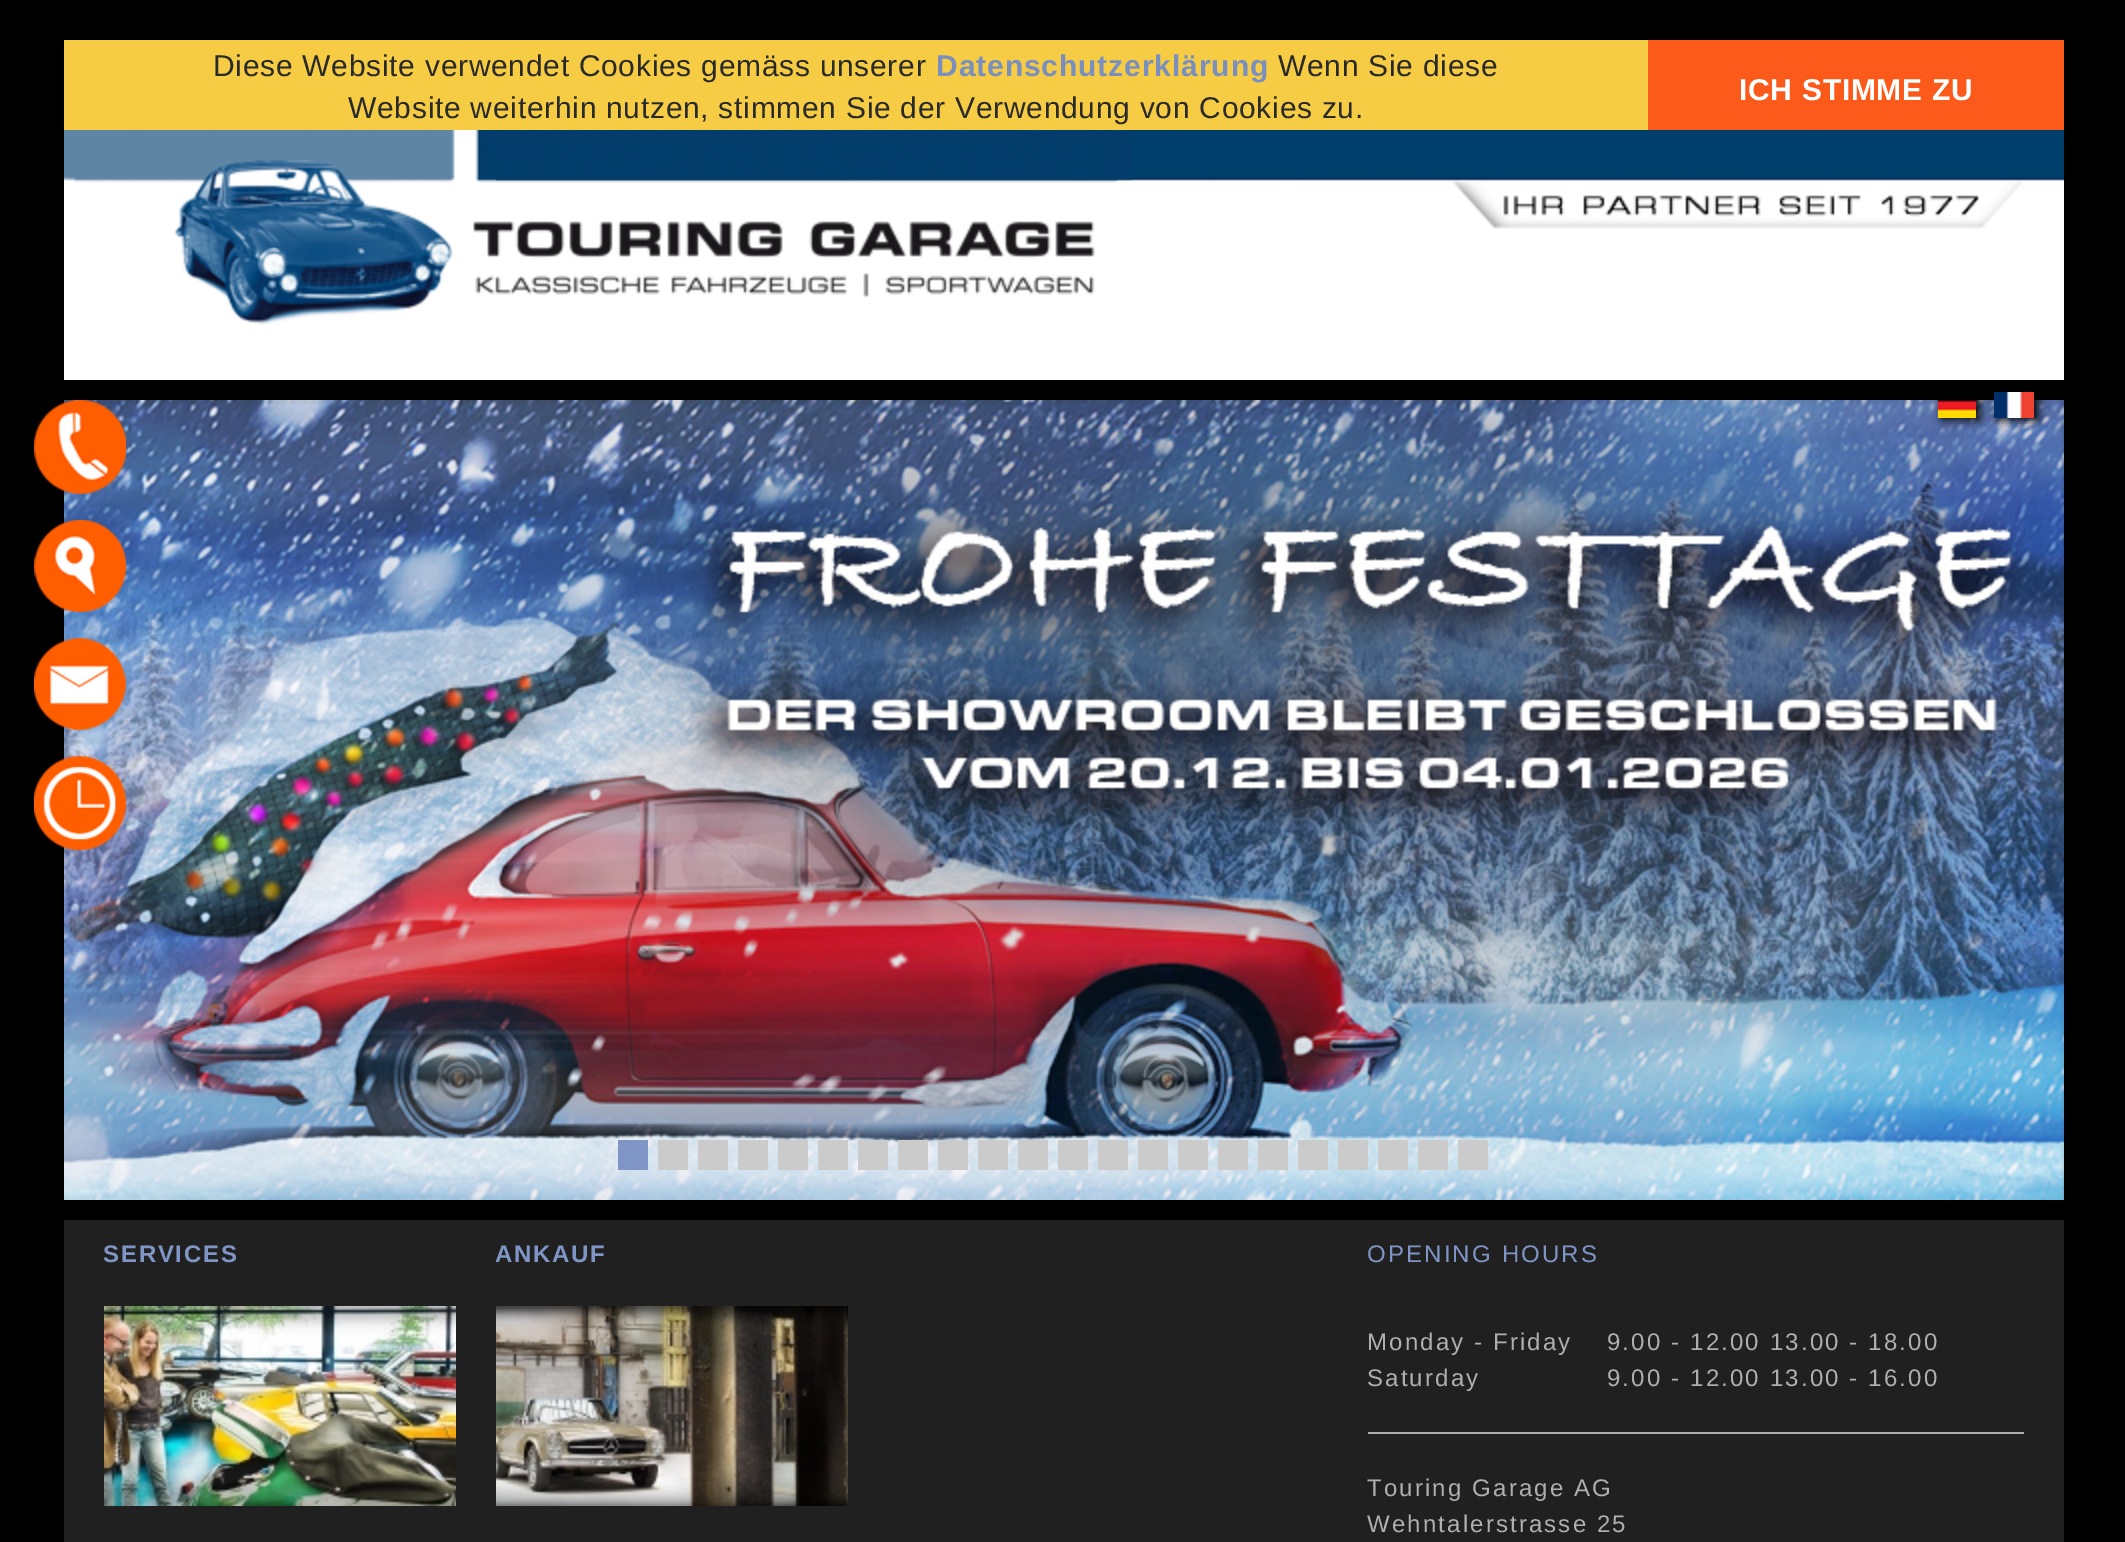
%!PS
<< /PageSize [2125 1542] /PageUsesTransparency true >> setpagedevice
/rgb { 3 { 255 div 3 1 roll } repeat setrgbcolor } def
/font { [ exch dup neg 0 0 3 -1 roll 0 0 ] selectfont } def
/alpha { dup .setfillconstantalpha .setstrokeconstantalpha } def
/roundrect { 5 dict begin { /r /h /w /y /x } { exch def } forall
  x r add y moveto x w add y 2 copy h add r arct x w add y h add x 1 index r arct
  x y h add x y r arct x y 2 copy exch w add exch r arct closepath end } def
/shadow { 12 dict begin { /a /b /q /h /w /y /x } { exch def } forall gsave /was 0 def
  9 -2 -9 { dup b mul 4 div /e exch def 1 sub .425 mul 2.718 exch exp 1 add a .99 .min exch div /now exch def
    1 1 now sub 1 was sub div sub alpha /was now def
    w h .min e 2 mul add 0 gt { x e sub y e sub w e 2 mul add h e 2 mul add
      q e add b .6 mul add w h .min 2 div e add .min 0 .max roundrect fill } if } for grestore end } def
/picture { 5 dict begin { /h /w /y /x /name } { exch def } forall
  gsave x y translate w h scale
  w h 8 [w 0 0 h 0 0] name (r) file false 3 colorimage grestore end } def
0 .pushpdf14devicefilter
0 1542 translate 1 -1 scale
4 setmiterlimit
0 0 0 rgb
0 0 2125 1542 rectfill
246 204 69 rgb
64 40 1584 90 rectfill
251 90 26 rgb
1648 40 416 90 rectfill
(img/9.rgb) 64 400 2000 800 picture
0.03 alpha
0 0 0 rgb
64 400 2000 4 rectfill
gsave
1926 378 moveto 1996 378 lineto 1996 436 lineto 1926 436 lineto closepath 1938 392 moveto 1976 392 lineto 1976 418 lineto 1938 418 lineto closepath eoclip newpath
1 alpha
1942 394 38 26 0 5 1 shadow
grestore
1 alpha
1998 394 40 26 0 5 1 shadow
(img/1.rgb) 64 130 2000 250 picture
(img/2.rgb) 64 130 1069 195 picture
(img/3.rgb) 1938 400 38 18 picture
(img/4.rgb) 1994 392 40 26 picture
(img/5.rgb) 34 400 92 94 picture
(img/6.rgb) 34 520 92 92 picture
(img/7.rgb) 34 638 92 92 picture
(img/8.rgb) 34 756 92 94 picture
[
  [618 1140 30 30 127 149 197]
  [658 1140 30 30 203 203 203]
  [698 1140 30 30 203 203 203]
  [738 1140 30 30 203 203 203]
  [778 1140 30 30 203 203 203]
  [818 1140 30 30 203 203 203]
  [858 1140 30 30 203 203 203]
  [898 1140 30 30 203 203 203]
  [938 1140 30 30 203 203 203]
  [978 1140 30 30 203 203 203]
  [1018 1140 30 30 203 203 203]
  [1058 1140 30 30 203 203 203]
  [1098 1140 30 30 203 203 203]
  [1138 1140 30 30 203 203 203]
  [1178 1140 30 30 203 203 203]
  [1218 1140 30 30 203 203 203]
  [1258 1140 30 30 203 203 203]
  [1298 1140 30 30 203 203 203]
  [1338 1140 30 30 203 203 203]
  [1378 1140 30 30 203 203 203]
  [1418 1140 30 30 203 203 203]
  [1458 1140 30 30 203 203 203]
  [64 1220 2000 322 33 32 32]
] { aload pop rgb rectfill } forall
(img/10.rgb) 104 1306 352 200 picture
(img/11.rgb) 496 1306 352 200 picture
175 175 175 rgb
1368 1432 656 2 rectfill
/LiberationSans-Regular 30 font
42 42 42 rgb
213 76 moveto 0.72 0 (Diese Website verwendet Cookies gemäss unserer) ashow
/LiberationSans-Bold 30 font
122 143 189 rgb
936 76 moveto 0.9 0 (Datenschutzerklärung) ashow
/LiberationSans-Regular 30 font
42 42 42 rgb
1278 76 moveto 0.72 0 (Wenn Sie diese) ashow
348 118 moveto 0.72 0 (Website weiterhin nutzen, stimmen Sie der Verwendung von Cookies zu.) ashow
/LiberationSans-Bold 30 font
255 255 255 rgb
1739 100 moveto 0.72 0 (ICH STIMME ZU) ashow
/LiberationSans-Bold 24 font
127 149 197 rgb
103 1262 moveto 1.75 0 (SERVICES) ashow
495 1262 moveto 1.75 0 (ANKAUF) ashow
/LiberationSans-Regular 24 font
1367 1262 moveto 2.15 0 (OPENING HOURS) ashow
175 175 175 rgb
1367 1350 moveto 2.15 0 (Monday - Friday) ashow
1607 1350 moveto 2.15 0 (9.00 - 12.00 13.00 - 18.00) ashow
1367 1386 moveto 2.15 0 (Saturday) ashow
1607 1386 moveto 2.15 0 (9.00 - 12.00 13.00 - 16.00) ashow
1367 1496 moveto 2.15 0 (Touring Garage AG) ashow
1367 1532 moveto 2.15 0 (Wehntalerstrasse 25) ashow
.poppdf14devicefilter showpage
